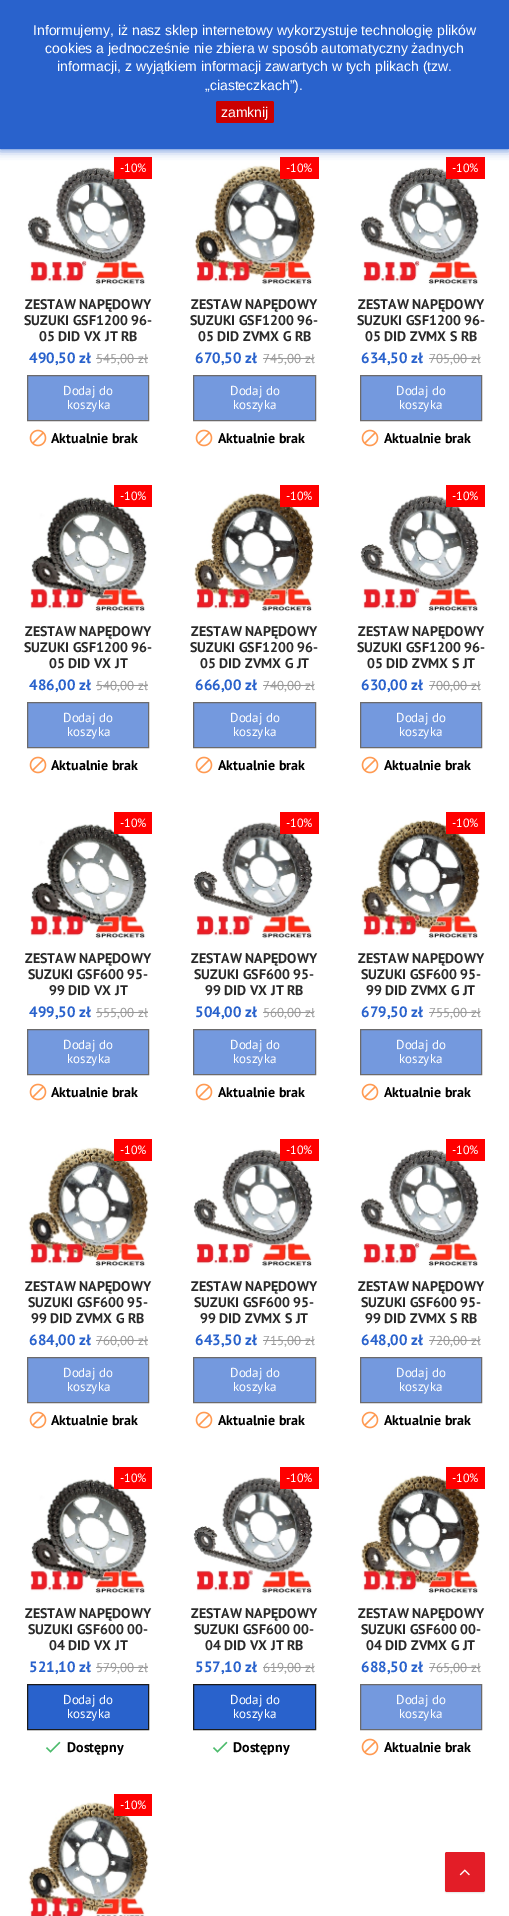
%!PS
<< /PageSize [509 1916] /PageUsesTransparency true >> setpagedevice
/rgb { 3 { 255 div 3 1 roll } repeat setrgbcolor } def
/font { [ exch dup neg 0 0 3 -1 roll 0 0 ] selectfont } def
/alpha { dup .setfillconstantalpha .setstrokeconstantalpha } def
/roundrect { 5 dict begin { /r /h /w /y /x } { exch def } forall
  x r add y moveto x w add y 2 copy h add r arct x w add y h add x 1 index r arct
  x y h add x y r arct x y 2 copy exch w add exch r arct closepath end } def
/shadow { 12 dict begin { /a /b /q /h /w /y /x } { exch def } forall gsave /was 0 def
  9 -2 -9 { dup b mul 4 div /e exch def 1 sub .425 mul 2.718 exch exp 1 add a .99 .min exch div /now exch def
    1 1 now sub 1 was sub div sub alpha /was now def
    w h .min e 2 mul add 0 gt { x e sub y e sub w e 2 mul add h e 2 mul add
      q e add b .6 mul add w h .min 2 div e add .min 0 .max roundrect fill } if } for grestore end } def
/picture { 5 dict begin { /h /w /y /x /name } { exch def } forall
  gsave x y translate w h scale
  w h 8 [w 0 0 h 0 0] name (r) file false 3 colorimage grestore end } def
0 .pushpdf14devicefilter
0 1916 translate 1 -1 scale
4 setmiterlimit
255 255 255 rgb
0 0 509 1916 rectfill
(img/2.rgb) 27 167 119 118 picture
255 0 0 rgb
114 157 38 22 rectfill
(img/4.rgb) 195 165 121 120 picture
280 157 39 22 rectfill
(img/2.rgb) 360 167 119 118 picture
446 157 39 22 rectfill
41 98 204 rgb
0 0 509 149 0 5 1 shadow
0 0 509 149 rectfill
204 0 0 rgb
216 101 58 22 2 roundrect fill
0 0 0 rgb
445 1853 40 40 2 0.5 0.1 shadow
227 29 39 rgb
445 1852 40 40 2 roundrect fill
(img/1.rgb) 459 1869 11 7 picture
153 153 153 rgb
96 358 52 1 rectfill
116 153 222 rgb
27.5 375.5 moveto 148.5 375.5 lineto 148.5 420.5 lineto 27.5 420.5 lineto closepath gsave fill grestore
107 106 107 rgb
stroke
(img/3.rgb) 29 429 18 18 picture
153 153 153 rgb
263 358 51 1 rectfill
116 153 222 rgb
193.5 375.5 moveto 315.5 375.5 lineto 315.5 420.5 lineto 193.5 420.5 lineto closepath gsave fill grestore
107 106 107 rgb
stroke
(img/3.rgb) 195 429 18 18 picture
153 153 153 rgb
429 358 51 1 rectfill
116 153 222 rgb
360.5 375.5 moveto 481.5 375.5 lineto 481.5 420.5 lineto 360.5 420.5 lineto closepath gsave fill grestore
107 106 107 rgb
stroke
(img/3.rgb) 361 429 18 18 picture
(img/5.rgb) 30 497 117 115 picture
255 0 0 rgb
114 485 38 22 rectfill
153 153 153 rgb
96 685 52 1 rectfill
116 153 222 rgb
27.5 702.5 moveto 148.5 702.5 lineto 148.5 747.5 lineto 27.5 747.5 lineto closepath gsave fill grestore
107 106 107 rgb
stroke
(img/3.rgb) 29 756 18 18 picture
(img/6.rgb) 194 493 120 119 picture
255 0 0 rgb
280 485 39 22 rectfill
153 153 153 rgb
263 685 51 1 rectfill
116 153 222 rgb
193.5 702.5 moveto 315.5 702.5 lineto 315.5 747.5 lineto 193.5 747.5 lineto closepath gsave fill grestore
107 106 107 rgb
stroke
(img/3.rgb) 195 756 18 18 picture
(img/7.rgb) 360 495 119 117 picture
255 0 0 rgb
446 485 39 22 rectfill
153 153 153 rgb
429 685 51 1 rectfill
116 153 222 rgb
360.5 702.5 moveto 481.5 702.5 lineto 481.5 747.5 lineto 360.5 747.5 lineto closepath gsave fill grestore
107 106 107 rgb
stroke
(img/3.rgb) 361 756 18 18 picture
(img/5.rgb) 30 824 117 115 picture
255 0 0 rgb
114 812 38 22 rectfill
153 153 153 rgb
96 1012 52 1 rectfill
116 153 222 rgb
27.5 1029.5 moveto 148.5 1029.5 lineto 148.5 1074.5 lineto 27.5 1074.5 lineto closepath gsave fill grestore
107 106 107 rgb
stroke
(img/3.rgb) 29 1083 18 18 picture
(img/8.rgb) 193 822 120 117 picture
255 0 0 rgb
280 812 39 22 rectfill
153 153 153 rgb
263 1012 51 1 rectfill
116 153 222 rgb
193.5 1029.5 moveto 315.5 1029.5 lineto 315.5 1074.5 lineto 193.5 1074.5 lineto closepath gsave fill grestore
107 106 107 rgb
stroke
(img/3.rgb) 195 1083 18 18 picture
(img/9.rgb) 361 820 119 119 picture
255 0 0 rgb
446 812 39 22 rectfill
153 153 153 rgb
429 1012 51 1 rectfill
116 153 222 rgb
360.5 1029.5 moveto 481.5 1029.5 lineto 481.5 1074.5 lineto 360.5 1074.5 lineto closepath gsave fill grestore
107 106 107 rgb
stroke
(img/3.rgb) 361 1083 18 18 picture
(img/10.rgb) 28 1147 121 120 picture
255 0 0 rgb
114 1139 38 22 rectfill
153 153 153 rgb
96 1340 52 1 rectfill
116 153 222 rgb
27.5 1357.5 moveto 148.5 1357.5 lineto 148.5 1402.5 lineto 27.5 1402.5 lineto closepath gsave fill grestore
107 106 107 rgb
stroke
(img/3.rgb) 29 1411 18 18 picture
(img/11.rgb) 193 1149 120 118 picture
255 0 0 rgb
280 1139 39 22 rectfill
153 153 153 rgb
263 1340 51 1 rectfill
116 153 222 rgb
193.5 1357.5 moveto 315.5 1357.5 lineto 315.5 1402.5 lineto 193.5 1402.5 lineto closepath gsave fill grestore
107 106 107 rgb
stroke
(img/3.rgb) 195 1411 18 18 picture
(img/2.rgb) 360 1149 119 118 picture
255 0 0 rgb
446 1139 39 22 rectfill
153 153 153 rgb
429 1340 51 1 rectfill
116 153 222 rgb
360.5 1357.5 moveto 481.5 1357.5 lineto 481.5 1402.5 lineto 360.5 1402.5 lineto closepath gsave fill grestore
107 106 107 rgb
stroke
(img/3.rgb) 361 1411 18 18 picture
(img/12.rgb) 30 1479 117 115 picture
255 0 0 rgb
114 1467 38 22 rectfill
153 153 153 rgb
96 1667 52 1 rectfill
41 98 204 rgb
27.5 1684.5 moveto 148.5 1684.5 lineto 148.5 1729.5 lineto 27.5 1729.5 lineto closepath gsave fill grestore
27 26 27 rgb
stroke
(img/13.rgb) 45 1741 16 12 picture
(img/14.rgb) 193 1477 120 117 picture
255 0 0 rgb
280 1467 39 22 rectfill
153 153 153 rgb
263 1667 51 1 rectfill
41 98 204 rgb
193.5 1684.5 moveto 315.5 1684.5 lineto 315.5 1729.5 lineto 193.5 1729.5 lineto closepath gsave fill grestore
27 26 27 rgb
stroke
(img/13.rgb) 212 1741 16 12 picture
(img/9.rgb) 361 1475 119 119 picture
255 0 0 rgb
446 1467 39 22 rectfill
153 153 153 rgb
429 1667 51 1 rectfill
116 153 222 rgb
360.5 1684.5 moveto 481.5 1684.5 lineto 481.5 1729.5 lineto 360.5 1729.5 lineto closepath gsave fill grestore
107 106 107 rgb
stroke
(img/3.rgb) 361 1738 18 18 picture
(img/15.rgb) 28 1802 121 114 picture
255 0 0 rgb
114 1794 38 22 rectfill
/LiberationSans-Regular 14 font
255 255 255 rgb
[
  [(Informujemy, iż nasz sklep internetowy wykorzystuje technologię plików) 33 35]
  [(cookies a jednocześnie nie zbiera w sposób automatyczny żadnych) 45 53]
  [(informacji, z wyjątkiem informacji zawartych w tych plikach \(tzw.) 57 71]
  [(„ciasteczkach”\).) 205 90]
  [(zamknij) 221 117]
] { aload pop moveto show } forall
/PTSans-Regular 12 font
120 172 moveto (-10%) show
/PTSans-Bold 14 font
41 41 41 rgb
[
  [(ZESTAW NAPĘDOWY) 25 309]
  [(SUZUKI GSF1200 96-) 24 325]
  [(05 DID VX JT RB) 39 341]
] { aload pop moveto show } forall
/PTSans-Bold 15 font
41 98 204 rgb
29 363 moveto (490,50 zł) show
/PTSans-Regular 13 font
153 153 153 rgb
96 363 moveto (545,00 zł) show
255 255 255 rgb
63 395 moveto (Dodaj do) show
67 409 moveto (koszyka) show
/PTSans-Bold 14 font
0 0 0 rgb
51 443 moveto (Aktualnie brak) show
/PTSans-Regular 12 font
255 255 255 rgb
286 172 moveto (-10%) show
/PTSans-Bold 14 font
41 41 41 rgb
[
  [(ZESTAW NAPĘDOWY) 191 309]
  [(SUZUKI GSF1200 96-) 190 325]
  [(05 DID ZVMX G RB) 198 341]
] { aload pop moveto show } forall
/PTSans-Bold 15 font
41 98 204 rgb
195 363 moveto (670,50 zł) show
/PTSans-Regular 13 font
153 153 153 rgb
263 363 moveto (745,00 zł) show
255 255 255 rgb
230 395 moveto (Dodaj do) show
233 409 moveto (koszyka) show
/PTSans-Bold 14 font
0 0 0 rgb
218 443 moveto (Aktualnie brak) show
/PTSans-Regular 12 font
255 255 255 rgb
452 172 moveto (-10%) show
/PTSans-Bold 14 font
41 41 41 rgb
[
  [(ZESTAW NAPĘDOWY) 358 309]
  [(SUZUKI GSF1200 96-) 357 325]
  [(05 DID ZVMX S RB) 365 341]
] { aload pop moveto show } forall
/PTSans-Bold 15 font
41 98 204 rgb
361 363 moveto (634,50 zł) show
/PTSans-Regular 13 font
153 153 153 rgb
429 363 moveto (705,00 zł) show
255 255 255 rgb
396 395 moveto (Dodaj do) show
399 409 moveto (koszyka) show
/PTSans-Bold 14 font
0 0 0 rgb
384 443 moveto (Aktualnie brak) show
/PTSans-Regular 12 font
255 255 255 rgb
120 500 moveto (-10%) show
/PTSans-Bold 14 font
41 41 41 rgb
[
  [(ZESTAW NAPĘDOWY) 25 636]
  [(SUZUKI GSF1200 96-) 24 652]
  [(05 DID VX JT) 49 668]
] { aload pop moveto show } forall
/PTSans-Bold 15 font
41 98 204 rgb
29 690 moveto (486,00 zł) show
/PTSans-Regular 13 font
153 153 153 rgb
96 690 moveto (540,00 zł) show
255 255 255 rgb
63 722 moveto (Dodaj do) show
67 736 moveto (koszyka) show
/PTSans-Bold 14 font
0 0 0 rgb
51 770 moveto (Aktualnie brak) show
/PTSans-Regular 12 font
255 255 255 rgb
286 500 moveto (-10%) show
/PTSans-Bold 14 font
41 41 41 rgb
[
  [(ZESTAW NAPĘDOWY) 191 636]
  [(SUZUKI GSF1200 96-) 190 652]
  [(05 DID ZVMX G JT) 200 668]
] { aload pop moveto show } forall
/PTSans-Bold 15 font
41 98 204 rgb
195 690 moveto (666,00 zł) show
/PTSans-Regular 13 font
153 153 153 rgb
263 690 moveto (740,00 zł) show
255 255 255 rgb
230 722 moveto (Dodaj do) show
233 736 moveto (koszyka) show
/PTSans-Bold 14 font
0 0 0 rgb
218 770 moveto (Aktualnie brak) show
/PTSans-Regular 12 font
255 255 255 rgb
452 500 moveto (-10%) show
/PTSans-Bold 14 font
41 41 41 rgb
[
  [(ZESTAW NAPĘDOWY) 358 636]
  [(SUZUKI GSF1200 96-) 357 652]
  [(05 DID ZVMX S JT) 367 668]
] { aload pop moveto show } forall
/PTSans-Bold 15 font
41 98 204 rgb
361 690 moveto (630,00 zł) show
/PTSans-Regular 13 font
153 153 153 rgb
429 690 moveto (700,00 zł) show
255 255 255 rgb
396 722 moveto (Dodaj do) show
399 736 moveto (koszyka) show
/PTSans-Bold 14 font
0 0 0 rgb
384 770 moveto (Aktualnie brak) show
/PTSans-Regular 12 font
255 255 255 rgb
120 827 moveto (-10%) show
/PTSans-Bold 14 font
41 41 41 rgb
[
  [(ZESTAW NAPĘDOWY) 25 963]
  [(SUZUKI GSF600 95-) 28 979]
  [(99 DID VX JT) 49 995]
] { aload pop moveto show } forall
/PTSans-Bold 15 font
41 98 204 rgb
29 1017 moveto (499,50 zł) show
/PTSans-Regular 13 font
153 153 153 rgb
96 1017 moveto (555,00 zł) show
255 255 255 rgb
63 1049 moveto (Dodaj do) show
67 1063 moveto (koszyka) show
/PTSans-Bold 14 font
0 0 0 rgb
51 1097 moveto (Aktualnie brak) show
/PTSans-Regular 12 font
255 255 255 rgb
286 827 moveto (-10%) show
/PTSans-Bold 14 font
41 41 41 rgb
[
  [(ZESTAW NAPĘDOWY) 191 963]
  [(SUZUKI GSF600 95-) 194 979]
  [(99 DID VX JT RB) 205 995]
] { aload pop moveto show } forall
/PTSans-Bold 15 font
41 98 204 rgb
195 1017 moveto (504,00 zł) show
/PTSans-Regular 13 font
153 153 153 rgb
263 1017 moveto (560,00 zł) show
255 255 255 rgb
230 1049 moveto (Dodaj do) show
233 1063 moveto (koszyka) show
/PTSans-Bold 14 font
0 0 0 rgb
218 1097 moveto (Aktualnie brak) show
/PTSans-Regular 12 font
255 255 255 rgb
452 827 moveto (-10%) show
/PTSans-Bold 14 font
41 41 41 rgb
[
  [(ZESTAW NAPĘDOWY) 358 963]
  [(SUZUKI GSF600 95-) 361 979]
  [(99 DID ZVMX G JT) 366 995]
] { aload pop moveto show } forall
/PTSans-Bold 15 font
41 98 204 rgb
361 1017 moveto (679,50 zł) show
/PTSans-Regular 13 font
153 153 153 rgb
429 1017 moveto (755,00 zł) show
255 255 255 rgb
396 1049 moveto (Dodaj do) show
399 1063 moveto (koszyka) show
/PTSans-Bold 14 font
0 0 0 rgb
384 1097 moveto (Aktualnie brak) show
/PTSans-Regular 12 font
255 255 255 rgb
120 1154 moveto (-10%) show
/PTSans-Bold 14 font
41 41 41 rgb
[
  [(ZESTAW NAPĘDOWY) 25 1291]
  [(SUZUKI GSF600 95-) 28 1307]
  [(99 DID ZVMX G RB) 31 1323]
] { aload pop moveto show } forall
/PTSans-Bold 15 font
41 98 204 rgb
29 1345 moveto (684,00 zł) show
/PTSans-Regular 13 font
153 153 153 rgb
96 1345 moveto (760,00 zł) show
255 255 255 rgb
63 1377 moveto (Dodaj do) show
67 1391 moveto (koszyka) show
/PTSans-Bold 14 font
0 0 0 rgb
51 1425 moveto (Aktualnie brak) show
/PTSans-Regular 12 font
255 255 255 rgb
286 1154 moveto (-10%) show
/PTSans-Bold 14 font
41 41 41 rgb
[
  [(ZESTAW NAPĘDOWY) 191 1291]
  [(SUZUKI GSF600 95-) 194 1307]
  [(99 DID ZVMX S JT) 200 1323]
] { aload pop moveto show } forall
/PTSans-Bold 15 font
41 98 204 rgb
195 1345 moveto (643,50 zł) show
/PTSans-Regular 13 font
153 153 153 rgb
263 1345 moveto (715,00 zł) show
255 255 255 rgb
230 1377 moveto (Dodaj do) show
233 1391 moveto (koszyka) show
/PTSans-Bold 14 font
0 0 0 rgb
218 1425 moveto (Aktualnie brak) show
/PTSans-Regular 12 font
255 255 255 rgb
452 1154 moveto (-10%) show
/PTSans-Bold 14 font
41 41 41 rgb
[
  [(ZESTAW NAPĘDOWY) 358 1291]
  [(SUZUKI GSF600 95-) 361 1307]
  [(99 DID ZVMX S RB) 365 1323]
] { aload pop moveto show } forall
/PTSans-Bold 15 font
41 98 204 rgb
361 1345 moveto (648,00 zł) show
/PTSans-Regular 13 font
153 153 153 rgb
429 1345 moveto (720,00 zł) show
255 255 255 rgb
396 1377 moveto (Dodaj do) show
399 1391 moveto (koszyka) show
/PTSans-Bold 14 font
0 0 0 rgb
384 1425 moveto (Aktualnie brak) show
/PTSans-Regular 12 font
255 255 255 rgb
120 1482 moveto (-10%) show
/PTSans-Bold 14 font
41 41 41 rgb
[
  [(ZESTAW NAPĘDOWY) 25 1618]
  [(SUZUKI GSF600 00-) 28 1634]
  [(04 DID VX JT) 49 1650]
] { aload pop moveto show } forall
/PTSans-Bold 15 font
41 98 204 rgb
29 1672 moveto (521,10 zł) show
/PTSans-Regular 13 font
153 153 153 rgb
96 1672 moveto (579,00 zł) show
255 255 255 rgb
63 1704 moveto (Dodaj do) show
67 1718 moveto (koszyka) show
/PTSans-Bold 14 font
0 0 0 rgb
67 1752 moveto (Dostępny) show
/PTSans-Regular 12 font
255 255 255 rgb
286 1482 moveto (-10%) show
/PTSans-Bold 14 font
41 41 41 rgb
[
  [(ZESTAW NAPĘDOWY) 191 1618]
  [(SUZUKI GSF600 00-) 194 1634]
  [(04 DID VX JT RB) 205 1650]
] { aload pop moveto show } forall
/PTSans-Bold 15 font
41 98 204 rgb
195 1672 moveto (557,10 zł) show
/PTSans-Regular 13 font
153 153 153 rgb
263 1672 moveto (619,00 zł) show
255 255 255 rgb
230 1704 moveto (Dodaj do) show
233 1718 moveto (koszyka) show
/PTSans-Bold 14 font
0 0 0 rgb
233 1752 moveto (Dostępny) show
/PTSans-Regular 12 font
255 255 255 rgb
452 1482 moveto (-10%) show
/PTSans-Bold 14 font
41 41 41 rgb
[
  [(ZESTAW NAPĘDOWY) 358 1618]
  [(SUZUKI GSF600 00-) 361 1634]
  [(04 DID ZVMX G JT) 366 1650]
] { aload pop moveto show } forall
/PTSans-Bold 15 font
41 98 204 rgb
361 1672 moveto (688,50 zł) show
/PTSans-Regular 13 font
153 153 153 rgb
429 1672 moveto (765,00 zł) show
255 255 255 rgb
396 1704 moveto (Dodaj do) show
399 1718 moveto (koszyka) show
/PTSans-Bold 14 font
0 0 0 rgb
384 1752 moveto (Aktualnie brak) show
/PTSans-Regular 12 font
255 255 255 rgb
120 1809 moveto (-10%) show
.poppdf14devicefilter showpage
